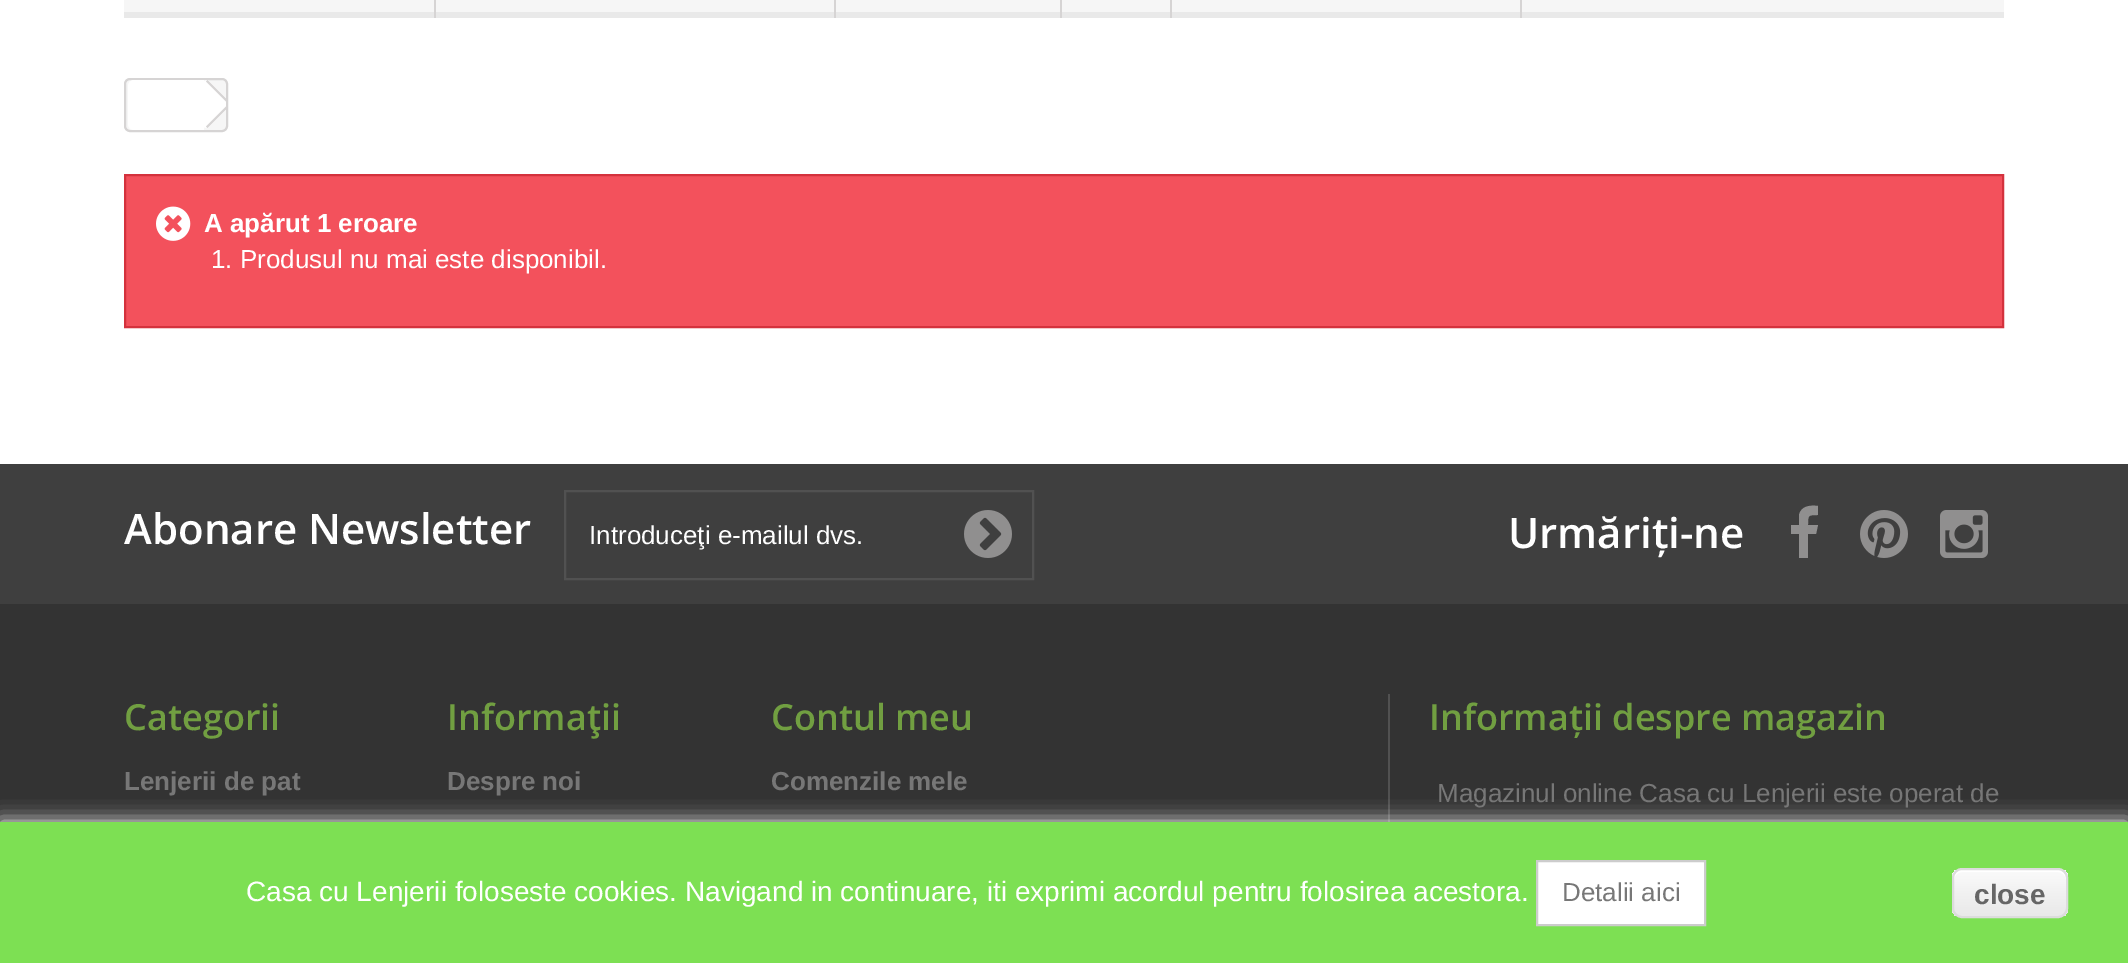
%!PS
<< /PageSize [2128 963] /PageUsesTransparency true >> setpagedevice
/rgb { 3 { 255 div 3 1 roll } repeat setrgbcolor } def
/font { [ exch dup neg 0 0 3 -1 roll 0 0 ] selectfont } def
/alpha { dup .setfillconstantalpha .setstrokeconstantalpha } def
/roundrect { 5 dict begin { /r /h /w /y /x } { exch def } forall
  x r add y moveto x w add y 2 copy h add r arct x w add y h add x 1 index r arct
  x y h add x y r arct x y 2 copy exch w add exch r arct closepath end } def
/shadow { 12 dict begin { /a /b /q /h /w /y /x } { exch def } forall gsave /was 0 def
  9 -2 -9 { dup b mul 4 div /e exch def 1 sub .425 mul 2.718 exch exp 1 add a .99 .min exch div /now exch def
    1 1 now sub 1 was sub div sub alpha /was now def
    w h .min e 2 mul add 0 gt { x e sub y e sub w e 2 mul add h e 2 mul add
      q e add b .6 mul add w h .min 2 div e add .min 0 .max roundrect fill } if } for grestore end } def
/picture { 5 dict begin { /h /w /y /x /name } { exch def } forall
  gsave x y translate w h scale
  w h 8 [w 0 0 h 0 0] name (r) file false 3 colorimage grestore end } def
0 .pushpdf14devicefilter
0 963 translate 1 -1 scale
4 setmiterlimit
51 51 51 rgb
0 0 2128 963 rectfill
[
  [0 0 2128 464 255 255 255]
  [124 0 1880 12 246 246 246]
  [124 12 1880 6 233 233 233]
  [434 0 2 18 214 212 212]
  [834 0 2 18 214 212 212]
  [1060 0 2 18 214 212 212]
  [1170 0 2 18 214 212 212]
  [1520 0 2 18 214 212 212]
] { aload pop rgb rectfill } forall
246 246 246 rgb
125 79 102 52 5 roundrect gsave fill grestore
214 212 212 rgb
2 setlinewidth
stroke
255 255 255 rgb
134 80 moveto 204 80 lineto 204 130 lineto 134 130 lineto 130.5 130 128 127.5 128 124 curveto 128 86 lineto 128 82.5 130.5 80 134 80 curveto closepath fill
209 81 moveto 226 98 lineto 226 110 lineto 209 127 lineto 207 128 205 128 203 127 curveto 183 107 lineto 182 105 182 103 183 101 curveto 203 81 lineto 205 80 207 80 209 81 curveto closepath fill
214 212 212 rgb
207.5 80 moveto 226 98.5 lineto 226 101.5 lineto 206 81.5 lineto closepath 226 106.5 moveto 226 109.5 lineto 207.5 128 lineto 206 126.5 lineto closepath fill
243 81 92 rgb
125 175 moveto 2003 175 lineto 2003 327 lineto 125 327 lineto closepath gsave fill grestore
212 50 61 rgb
stroke
(img/1.rgb) 156 206 35 35 picture
63 63 63 rgb
0 464 2128 140 rectfill
81 81 81 rgb
565 491 468 88 rectstroke
(img/2.rgb) 964 510 48 48 picture
144 143 143 rgb
1818 506 moveto 1818 515 lineto 1808 515 1808 515 1808 525 curveto 1818 525 lineto 1816 534 lineto 1808 534 lineto 1808 558 lineto 1799 558 lineto 1799 534 lineto 1791 534 lineto 1791 525 lineto 1799 525 lineto 1799 515 lineto 1801 506 1810 505 1818 506 curveto closepath fill
(img/3.rgb) 1860 510 48 48 picture
(img/4.rgb) 1940 510 48 48 picture
81 81 81 rgb
1388 694 2 128 rectfill
255 255 255 rgb
0 822 2128 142 0 10 1 shadow
125 224 83 rgb
0 822 2128 141 rectfill
255 255 255 rgb
1537 861 moveto 1705 861 lineto 1705 925 lineto 1537 925 lineto closepath gsave fill grestore
204 204 204 rgb
stroke
gsave
1952 868 116 50 10 roundrect clip newpath
gsave 1952 870 moveto 2068 870 lineto 2068 916 lineto 1952 916 lineto closepath clip newpath
<< /ShadingType 2 /ColorSpace /DeviceRGB /Coords [1954 870 1954 916] /Extend [true true] /Function << /FunctionType 3 /Domain [0 1] /Functions [<< /FunctionType 2 /Domain [0 1] /C0 [0.976 0.976 0.976] /C1 [0.976 0.976 0.976] /N 1 >> << /FunctionType 2 /Domain [0 1] /C0 [0.976 0.976 0.976] /C1 [0.914 0.914 0.914] /N 1 >>] /Bounds [0.05] /Encode [0 1 0 1] >> >> shfill grestore
grestore
255 255 255 rgb
1962 872 moveto 2058 872 lineto 2062 872 2066 876 2066 880 curveto 2066 866 2052 870 2042 870 curveto 1978 870 lineto 1968 870 1954 866 1954 880 curveto 1954 876 1958 872 1962 872 curveto closepath fill
220 220 220 rgb
1953 869 114 48 9 roundrect stroke
/LiberationSans-Bold 26 font
255 255 255 rgb
204 232 moveto (A apărut 1 eroare) show
/LiberationSans-Regular 26 font
211 268 moveto (1. Produsul nu mai este disponibil.) show
/OpenSans-SemiBold 42 font
124 544 moveto (Abonare Newsletter) show
/LiberationSans-Regular 26 font
589 544 moveto (Introduceţi e-mailul dvs.) show
/OpenSans-SemiBold 42 font
1508 548 moveto (Urmăriți-ne) show
/OpenSans-SemiBold 36 font
113 159 65 rgb
124 730 moveto (Categorii) show
/LiberationSans-Bold 26 font
119 119 119 rgb
124 790 moveto (Lenjerii de pat) show
/OpenSans-SemiBold 36 font
113 159 65 rgb
447 730 moveto (Informaţii) show
/LiberationSans-Bold 26 font
119 119 119 rgb
447 790 moveto (Despre noi) show
/OpenSans-SemiBold 36 font
113 159 65 rgb
771 730 moveto (Contul meu) show
/LiberationSans-Bold 26 font
119 119 119 rgb
771 790 moveto (Comenzile mele) show
/OpenSans-SemiBold 36 font
113 159 65 rgb
1429 730 moveto (Informații despre magazin) show
/LiberationSans-Regular 26 font
119 119 119 rgb
1437 802 moveto (Magazinul online Casa cu Lenjerii este operat de) show
/LiberationSans-Regular 28 font
255 255 255 rgb
246 901 moveto (Casa cu Lenjerii foloseste cookies. Navigand in continuare, iti exprimi acordul pentru folosirea acestora.) show
/LiberationSans-Regular 26 font
119 119 119 rgb
1562 901 moveto (Detalii aici) show
/LiberationSans-Bold 28 font
102 102 102 rgb
1974 904 moveto (close) show
.poppdf14devicefilter showpage
